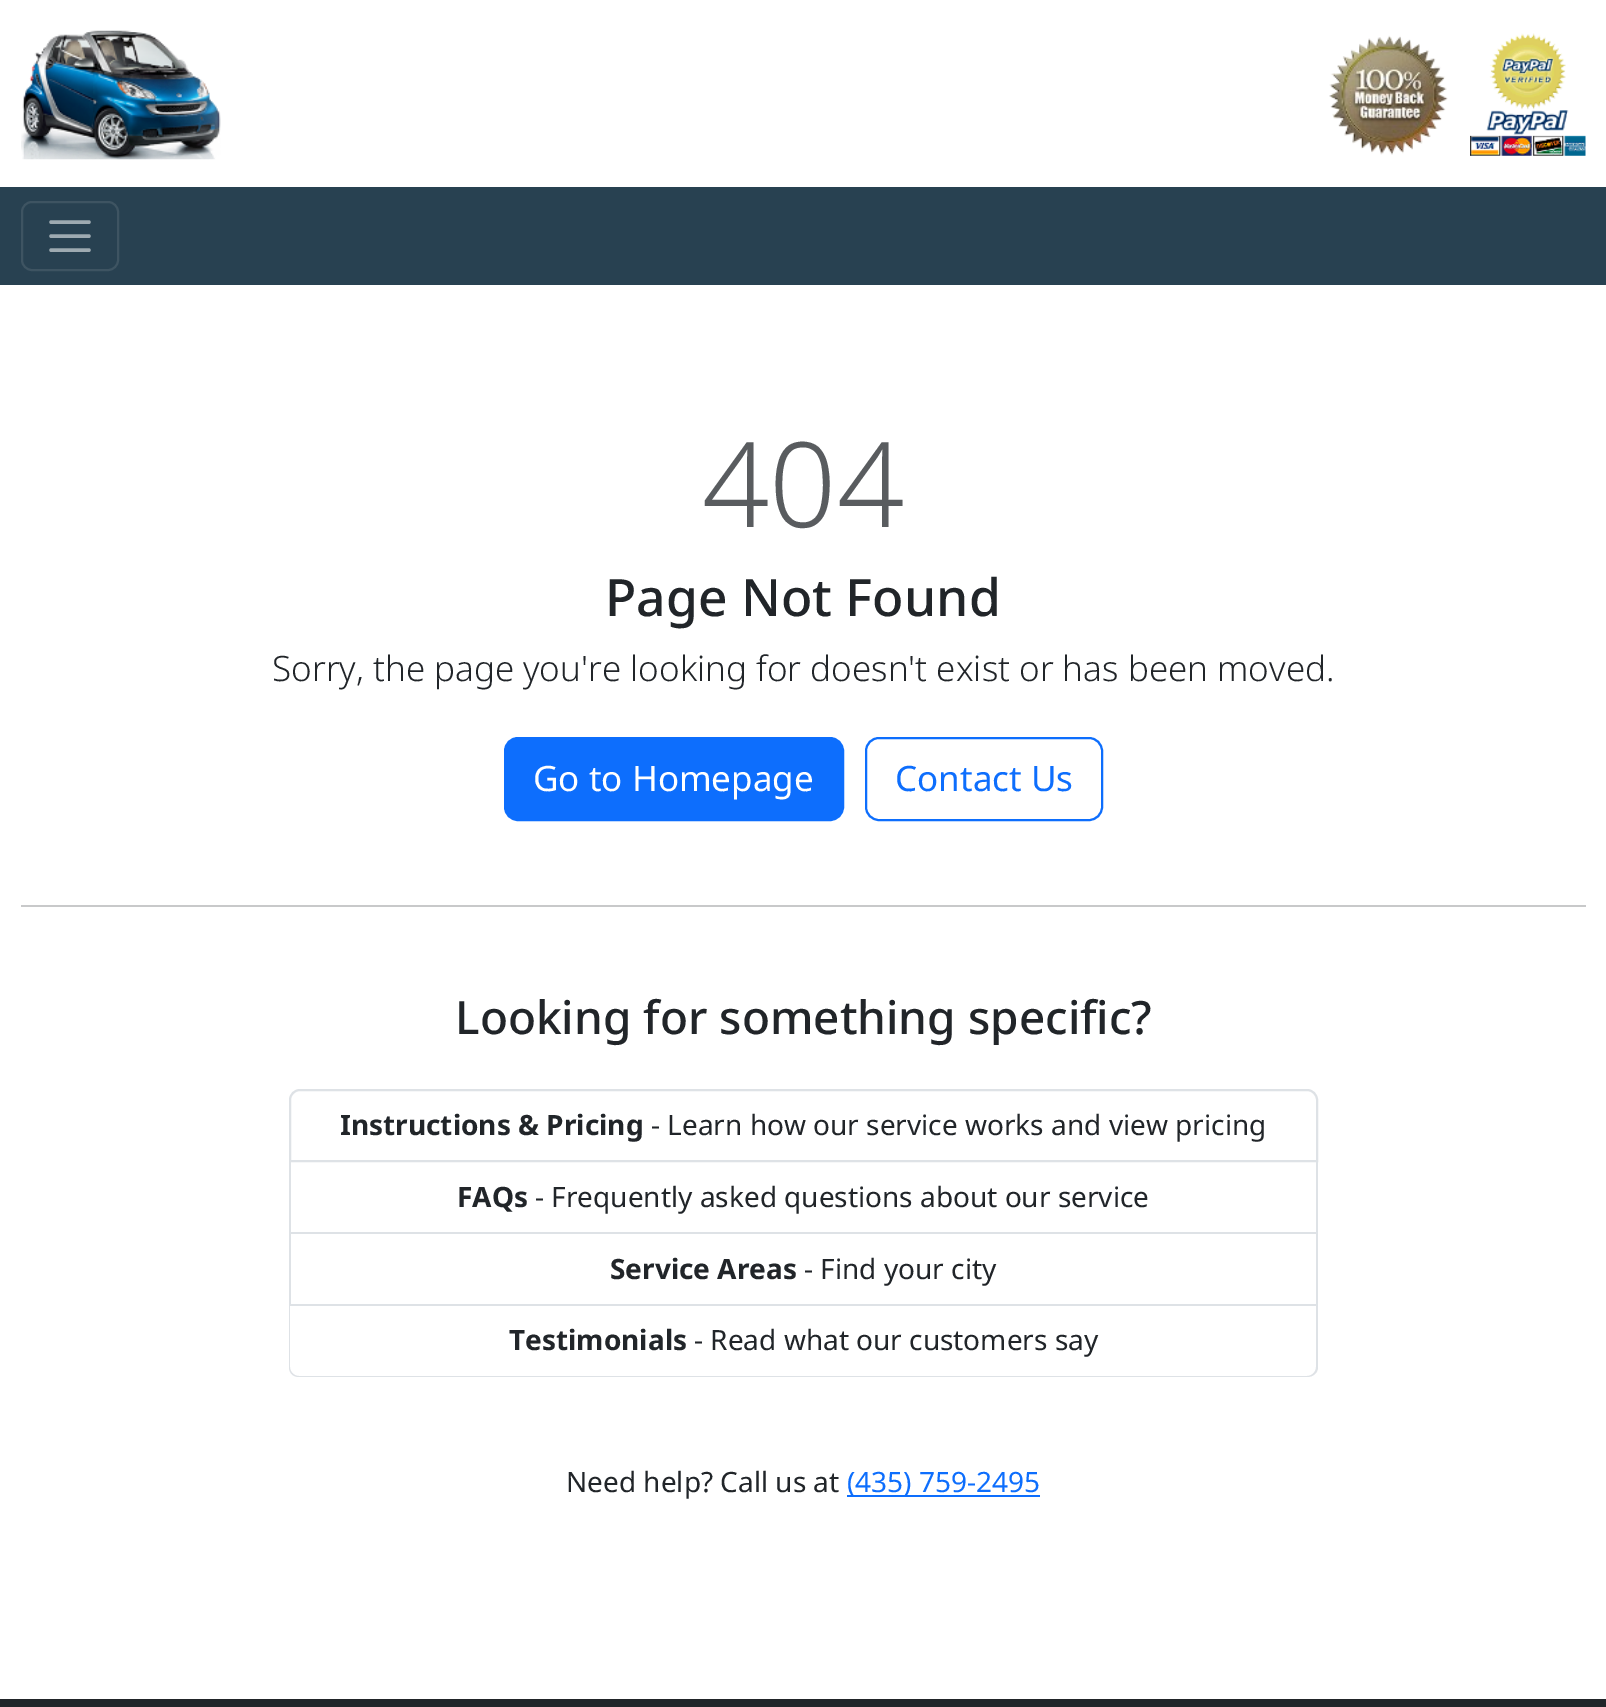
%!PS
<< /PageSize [1606 1707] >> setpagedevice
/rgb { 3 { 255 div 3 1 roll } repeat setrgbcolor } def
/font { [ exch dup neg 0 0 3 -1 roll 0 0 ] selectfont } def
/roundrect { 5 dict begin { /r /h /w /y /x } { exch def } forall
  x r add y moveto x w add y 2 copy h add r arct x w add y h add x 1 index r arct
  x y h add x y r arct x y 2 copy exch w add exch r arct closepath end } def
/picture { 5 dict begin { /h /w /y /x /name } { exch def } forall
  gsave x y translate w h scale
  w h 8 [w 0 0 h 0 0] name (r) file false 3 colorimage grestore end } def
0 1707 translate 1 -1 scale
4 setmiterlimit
255 255 255 rgb
0 0 1606 1707 rectfill
(img/1.rgb) 21 30 200 130 picture
(img/2.rgb) 1329 35 119 120 picture
(img/3.rgb) 1470 33 116 123 picture
40 65 81 rgb
0 187 1606 98 rectfill
62 84 98 rgb
2 setlinewidth
22 202 96 68 10 roundrect stroke
158 170 177 rgb
3.5 setlinewidth
1 setlinecap
51 222 moveto 89 222 lineto 51 236 moveto 89 236 lineto 51 250 moveto 89 250 lineto stroke
13 110 253 rgb
505 738 338 82 13 roundrect gsave fill grestore
2 setlinewidth
0 setlinecap
stroke
866 738 236 82 13 roundrect stroke
200 201 202 rgb
21 905 1565 2 rectfill
222 226 230 rgb
300 1090 moveto 1307 1090 lineto 1312.5 1090 1317 1094.5 1317 1100 curveto 1317 1161 lineto 290 1161 lineto 290 1100 lineto 290 1094.5 294.5 1090 300 1090 curveto closepath stroke
[
  [1316 1162 2 144 222 226 230]
  [289 1232 1029 2 222 226 230]
  [289 1162 2 72 222 226 230]
  [289 1304 1029 2 222 226 230]
  [289 1234 2 72 222 226 230]
] { aload pop rgb rectfill } forall
289 1306 moveto 1318 1306 lineto 1318 1367 lineto 1318 1373 1313 1377 1307 1377 curveto 299 1377 lineto 293 1377 289 1373 289 1367 curveto closepath 290 1306 moveto 1316 1306 lineto 1316 1367 lineto 1316 1372 1312 1376 1307 1376 curveto 299 1376 lineto 294 1376 290 1372 290 1367 curveto closepath eofill
13 110 253 rgb
847 1495 193 2 rectfill
33 37 41 rgb
0 1699 1606 8 rectfill
/NotoSans-Light 118 font
89 92 95 rgb
702 527 moveto (404) show
/NotoSans-Medium 51.5 font
33 37 41 rgb
605 616 moveto (Page Not Found) show
/NotoSans-Light 35 font
272 681 moveto (Sorry, the page you're looking for doesn't exist or has been moved.) show
/NotoSans-Regular 35 font
255 255 255 rgb
533 791 moveto (Go to Homepage) show
13 110 253 rgb
895 791 moveto (Contact Us) show
/NotoSans-Medium 46 font
33 37 41 rgb
455 1034 moveto (Looking for something specific?) show
/NotoSans-Bold 28 font
340 1135 moveto (Instructions & Pricing) show
/NotoSans-Regular 28 font
651 1135 moveto (- Learn how our service works and view pricing) show
/NotoSans-Bold 28 font
457 1207 moveto (FAQs) show
/NotoSans-Regular 28 font
535 1207 moveto (- Frequently asked questions about our service) show
/NotoSans-Bold 28 font
610 1279 moveto (Service Areas) show
/NotoSans-Regular 28 font
804 1279 moveto (- Find your city) show
/NotoSans-Bold 28 font
509 1350 moveto (Testimonials) show
/NotoSans-Regular 28 font
694 1350 moveto (- Read what our customers say) show
566 1492 moveto (Need help? Call us at) show
13 110 253 rgb
847 1492 moveto (\(435\) 759-2495) show
showpage
